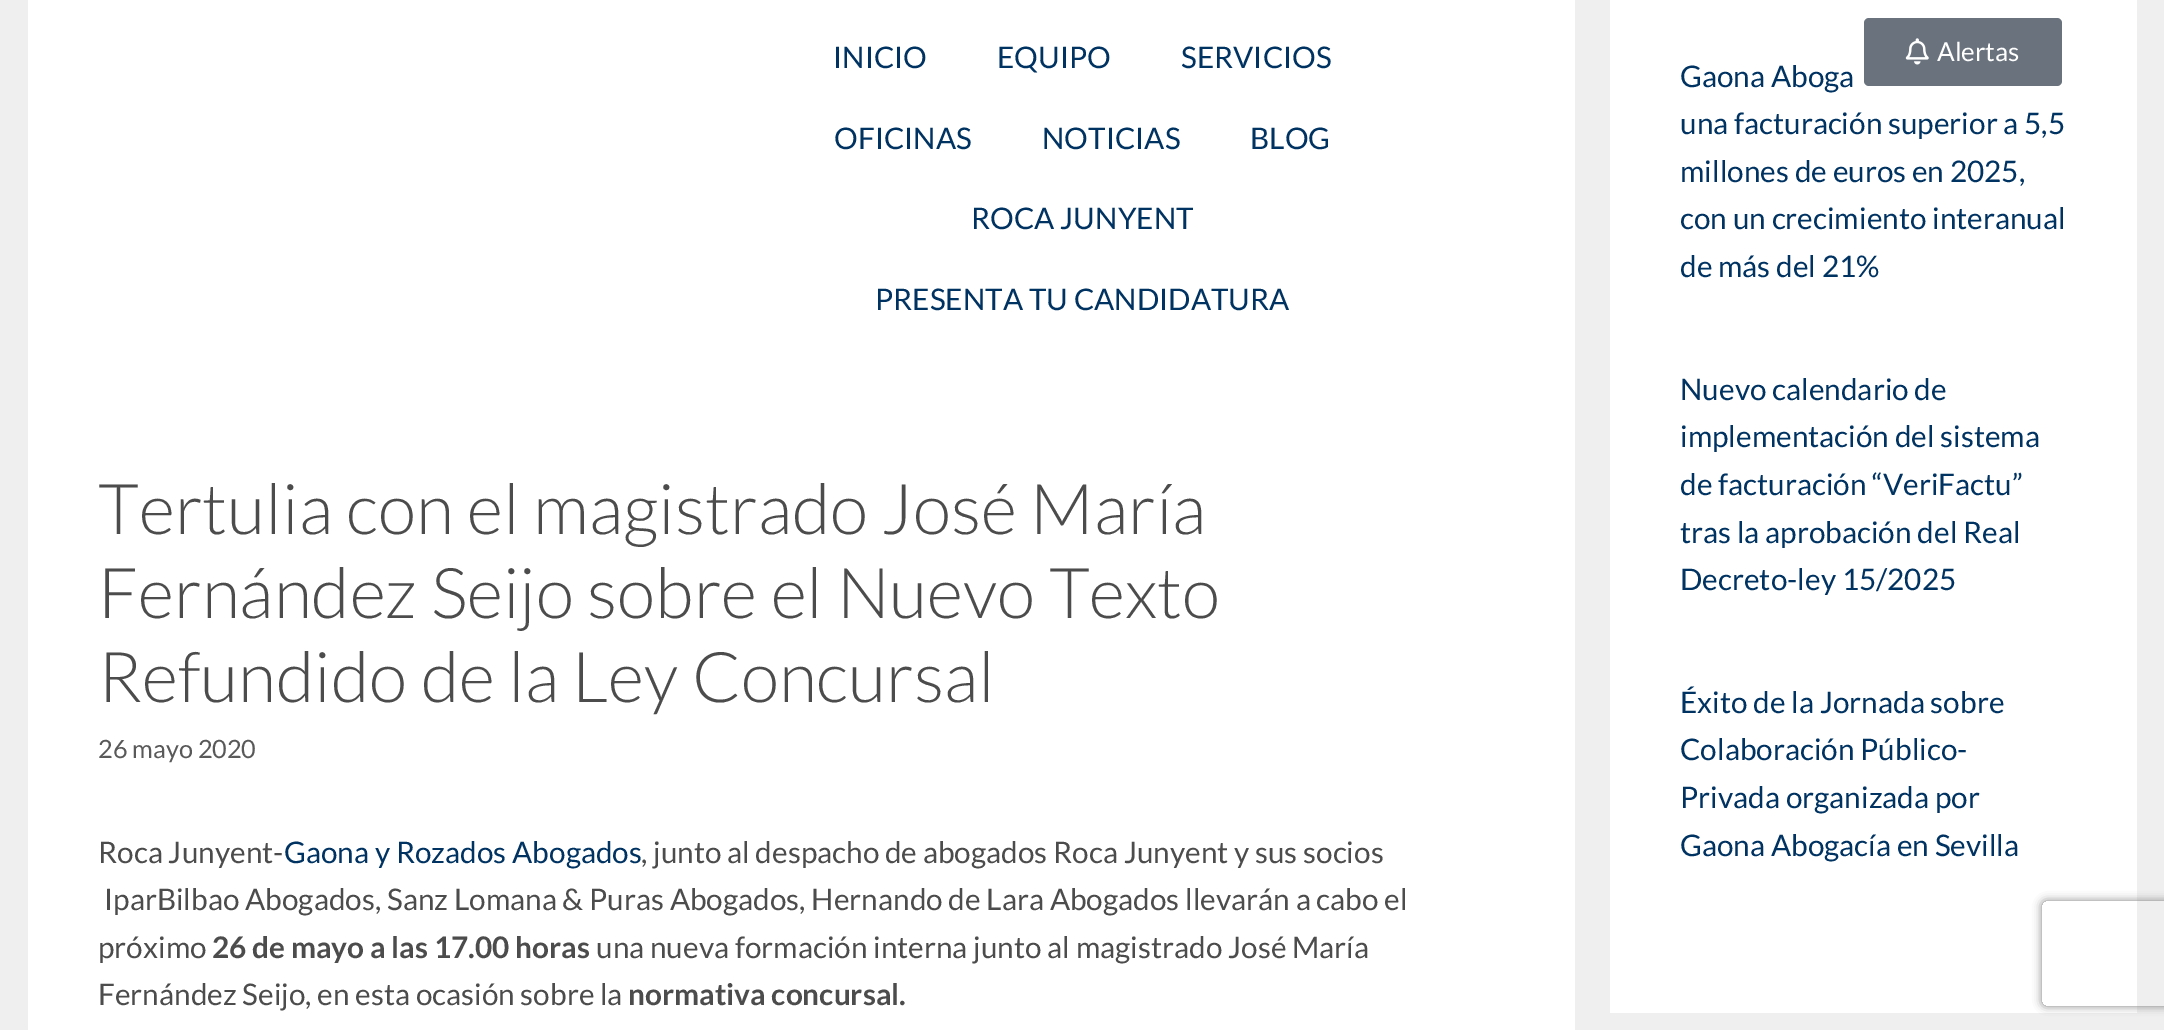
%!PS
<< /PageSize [2164 1030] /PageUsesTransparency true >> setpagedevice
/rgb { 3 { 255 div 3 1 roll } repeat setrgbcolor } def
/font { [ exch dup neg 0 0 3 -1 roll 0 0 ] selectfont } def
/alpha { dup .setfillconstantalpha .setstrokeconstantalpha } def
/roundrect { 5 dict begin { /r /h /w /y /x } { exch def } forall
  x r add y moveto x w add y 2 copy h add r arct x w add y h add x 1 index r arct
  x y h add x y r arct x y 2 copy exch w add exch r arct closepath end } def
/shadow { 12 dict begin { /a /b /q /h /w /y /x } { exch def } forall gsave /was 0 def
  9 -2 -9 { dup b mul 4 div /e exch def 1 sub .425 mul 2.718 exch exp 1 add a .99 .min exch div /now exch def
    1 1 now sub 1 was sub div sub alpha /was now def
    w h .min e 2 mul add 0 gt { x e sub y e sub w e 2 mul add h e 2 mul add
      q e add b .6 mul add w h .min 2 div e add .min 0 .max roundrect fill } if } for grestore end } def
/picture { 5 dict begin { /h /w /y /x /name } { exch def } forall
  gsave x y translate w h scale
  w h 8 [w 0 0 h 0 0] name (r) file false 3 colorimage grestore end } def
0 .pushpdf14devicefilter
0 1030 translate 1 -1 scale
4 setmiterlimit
239 239 239 rgb
0 0 2164 1030 rectfill
255 255 255 rgb
1610 0 527 1013 rectfill
105 114 125 rgb
1864 18 198 68 5 roundrect fill
(img/1.rgb) 1905 38 24 27 picture
255 255 255 rgb
28 0 1547 1030 rectfill
gsave
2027 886 moveto 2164 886 lineto 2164 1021 lineto 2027 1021 lineto closepath 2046 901 moveto 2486 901 lineto 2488 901 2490 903 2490 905 curveto 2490 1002 lineto 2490 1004 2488 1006 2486 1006 curveto 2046 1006 lineto 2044 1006 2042 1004 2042 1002 curveto 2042 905 lineto 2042 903 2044 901 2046 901 curveto closepath eoclip newpath
128 128 128 rgb
2042 901 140 105 4 4.5 1 shadow
grestore
/Lato-Regular 29.75 font
0 51 98 rgb
[
  [(INICIO) 833 68]
  [(EQUIPO) 997 68]
  [(SERVICIOS) 1181 68]
  [(OFICINAS) 834 149]
  [(NOTICIAS) 1042 149]
  [(BLOG) 1250 149]
  [(ROCA JUNYENT) 971 229]
  [(PRESENTA TU CANDIDATURA) 875 310]
] { aload pop moveto show } forall
/Lato-Regular 26 font
255 255 255 rgb
1937 61 moveto (Alertas) show
/Lato-Light 70 font
76 76 76 rgb
[
  [(Tertulia con el magistrado José María) 98 534]
  [(Fernández Seijo sobre el Nuevo Texto) 98 618]
  [(Refundido de la Ley Concursal) 98 702]
] { aload pop moveto show } forall
/Lato-Regular 25.25 font
89 89 89 rgb
98 758 moveto (26 mayo 2020) show
/Lato-Regular 29.75 font
76 76 76 rgb
98 863 moveto (Roca Junyent-) show
0 51 98 rgb
284 863 moveto (Gaona y Rozados Abogados) show
76 76 76 rgb
[
  [(, junto al despacho de abogados Roca Junyent y sus socios) 641 863]
  [(IparBilbao Abogados, Sanz Lomana & Puras Abogados, Hernando de Lara Abogados llevarán a cabo el) 104 910]
  [(próximo) 98 958]
] { aload pop moveto show } forall
/Lato-Bold 29.75 font
212 958 moveto (26 de mayo a las 17.00 horas) show
/Lato-Regular 29.75 font
596 958 moveto (una nueva formación interna junto al magistrado José María) show
98 1005 moveto (Fernández Seijo, en esta ocasión sobre la) show
/Lato-Bold 29.75 font
628 1005 moveto (normativa concursal.) show
/Lato-Regular 29.75 font
0 51 98 rgb
[
  [(Gaona Aboga) 1680 87]
  [(una facturación superior a 5,5) 1680 134]
  [(millones de euros en 2025,) 1680 182]
  [(con un crecimiento interanual) 1680 229]
  [(de más del 21%) 1680 277]
  [(Nuevo calendario de) 1680 400]
  [(implementación del sistema) 1680 447]
  [(de facturación “VeriFactu”) 1680 495]
  [(tras la aprobación del Real) 1680 543]
  [(Decreto-ley 15/2025) 1680 590]
  [(Éxito de la Jornada sobre) 1680 713]
  [(Colaboración Público-) 1680 760]
  [(Privada organizada por) 1680 808]
  [(Gaona Abogacía en Sevilla) 1680 856]
] { aload pop moveto show } forall
.poppdf14devicefilter showpage
